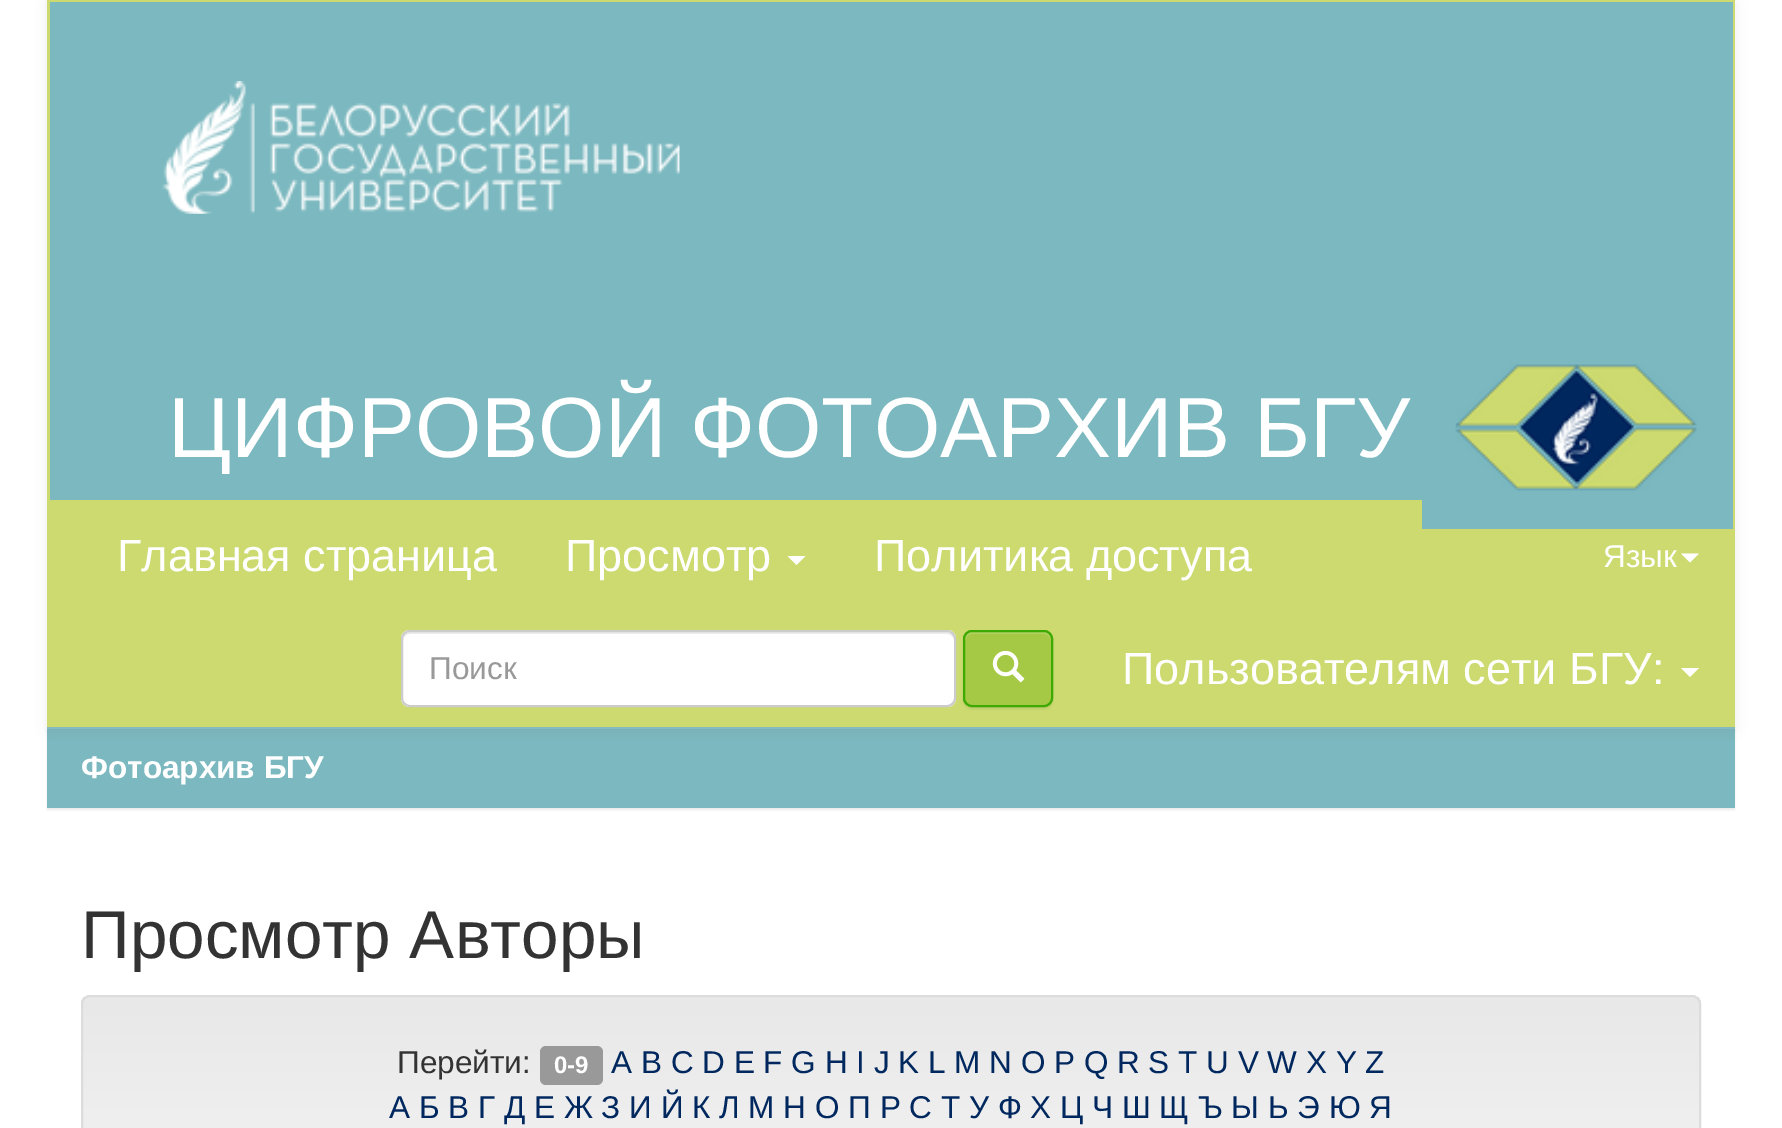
%!PS
<< /PageSize [1782 1128] /PageUsesTransparency true >> setpagedevice
/rgb { 3 { 255 div 3 1 roll } repeat setrgbcolor } def
/font { [ exch dup neg 0 0 3 -1 roll 0 0 ] selectfont } def
/alpha { dup .setfillconstantalpha .setstrokeconstantalpha } def
/roundrect { 5 dict begin { /r /h /w /y /x } { exch def } forall
  x r add y moveto x w add y 2 copy h add r arct x w add y h add x 1 index r arct
  x y h add x y r arct x y 2 copy exch w add exch r arct closepath end } def
/shadow { 12 dict begin { /a /b /q /h /w /y /x } { exch def } forall gsave /was 0 def
  9 -2 -9 { dup b mul 4 div /e exch def 1 sub .425 mul 2.718 exch exp 1 add a .99 .min exch div /now exch def
    1 1 now sub 1 was sub div sub alpha /was now def
    w h .min e 2 mul add 0 gt { x e sub y e sub w e 2 mul add h e 2 mul add
      q e add b .6 mul add w h .min 2 div e add .min 0 .max roundrect fill } if } for grestore end } def
/picture { 5 dict begin { /h /w /y /x /name } { exch def } forall
  gsave x y translate w h scale
  w h 8 [w 0 0 h 0 0] name (r) file false 3 colorimage grestore end } def
0 .pushpdf14devicefilter
0 1128 translate 1 -1 scale
4 setmiterlimit
255 255 255 rgb
0 0 1782 1128 rectfill
0 0 0 rgb
47 729 1688 81 0 1 0.07 shadow
123 184 191 rgb
47 729 1688 79 rectfill
143 195 201 rgb
47 727 1688 2 rectfill
0 0 0 rgb
47 2 1688 727 0 5.5 0.07 shadow
204 218 112 rgb
47 0 1688 727 rectfill
123 184 191 rgb
50 2 1683 498 rectfill
(img/1.rgb) 162 81 518 133 picture
1422 500 311 29 rectfill
(img/2.rgb) 1455 363 242 128 picture
255 255 255 rgb
787.5 556 moveto 805.5 556 lineto 796.5 565 lineto closepath fill
1681 553.5 moveto 1699 553.5 lineto 1690 562.5 lineto closepath fill
401 630 555 77 9 roundrect fill
236 236 236 rgb
410 634 moveto 947 634 lineto 951 634 954 638 954 641 curveto 954 637 952 632 947 632 curveto 410 632 lineto 405 632 403 637 403 641 curveto 403 638 406 634 410 634 curveto closepath fill
204 204 204 rgb
2 setlinewidth
402 631 553 75 8 roundrect stroke
0 0 0 rgb
963 632 90 77 9 1 0.07 shadow
165 201 68 rgb
963 630 90 77 9 roundrect fill
179 209 96 rgb
972 634 moveto 1044 634 lineto 1048 634 1051 638 1051 641 curveto 1051 629 1041 632 1032 632 curveto 984 632 lineto 975 632 965 629 965 641 curveto 965 638 968 634 972 634 curveto closepath fill
60 170 3 rgb
964 631 88 75 8 roundrect stroke
(img/3.rgb) 992 650 33 33 picture
255 255 255 rgb
1681 668 moveto 1699 668 lineto 1690 677 lineto closepath fill
gsave
81 995 1620 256 9 roundrect clip newpath
gsave 81 997 moveto 1701 997 lineto 1701 1128 lineto 81 1128 lineto closepath clip newpath
<< /ShadingType 2 /ColorSpace /DeviceRGB /Coords [891 997 891 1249] /Extend [true true] /Function << /FunctionType 2 /Domain [0 1] /C0 [0.91 0.91 0.91] /C1 [0.961 0.961 0.961] /N 1 >> >> shfill grestore
grestore
220 220 220 rgb
82 996 1618 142 8 roundrect stroke
153 153 153 rgb
540 1046 63 39 6 roundrect fill
/LiberationSans-Regular 85.5 font
255 255 255 rgb
168 457 moveto (ЦИФРОВОЙ ФОТОАРХИВ БГУ) show
/LiberationSans-Regular 45 font
[
  [(Главная страница) 117 571]
  [(Просмотр) 565 571]
  [(Политика доступа) 874 571]
] { aload pop moveto show } forall
/LiberationSans-Regular 31.5 font
1603 567 moveto (Язык) show
153 153 153 rgb
429 679 moveto (Поиск) show
/LiberationSans-Regular 45 font
255 255 255 rgb
1122 684 moveto (Пользователям сети БГУ:) show
/LiberationSans-Bold 31.5 font
81 778 moveto (Фотоархив БГУ) show
/LiberationSans-Regular 67.5 font
51 51 51 rgb
81 958 moveto (Просмотр Авторы) show
/LiberationSans-Regular 31.5 font
397 1073 moveto (Перейти:) show
/LiberationSans-Bold 24 font
255 255 255 rgb
554 1073 moveto (0-9) show
/LiberationSans-Regular 31.5 font
0 40 95 rgb
611 1073 moveto (A B C D E F G H I J K L M N O P Q R S T U V W X Y Z) show
389 1118 moveto (А Б В Г Д Е Ж З И Й К Л М Н О П Р С Т У Ф Х Ц Ч Ш Щ Ъ Ы Ь Э Ю Я) show
.poppdf14devicefilter showpage
